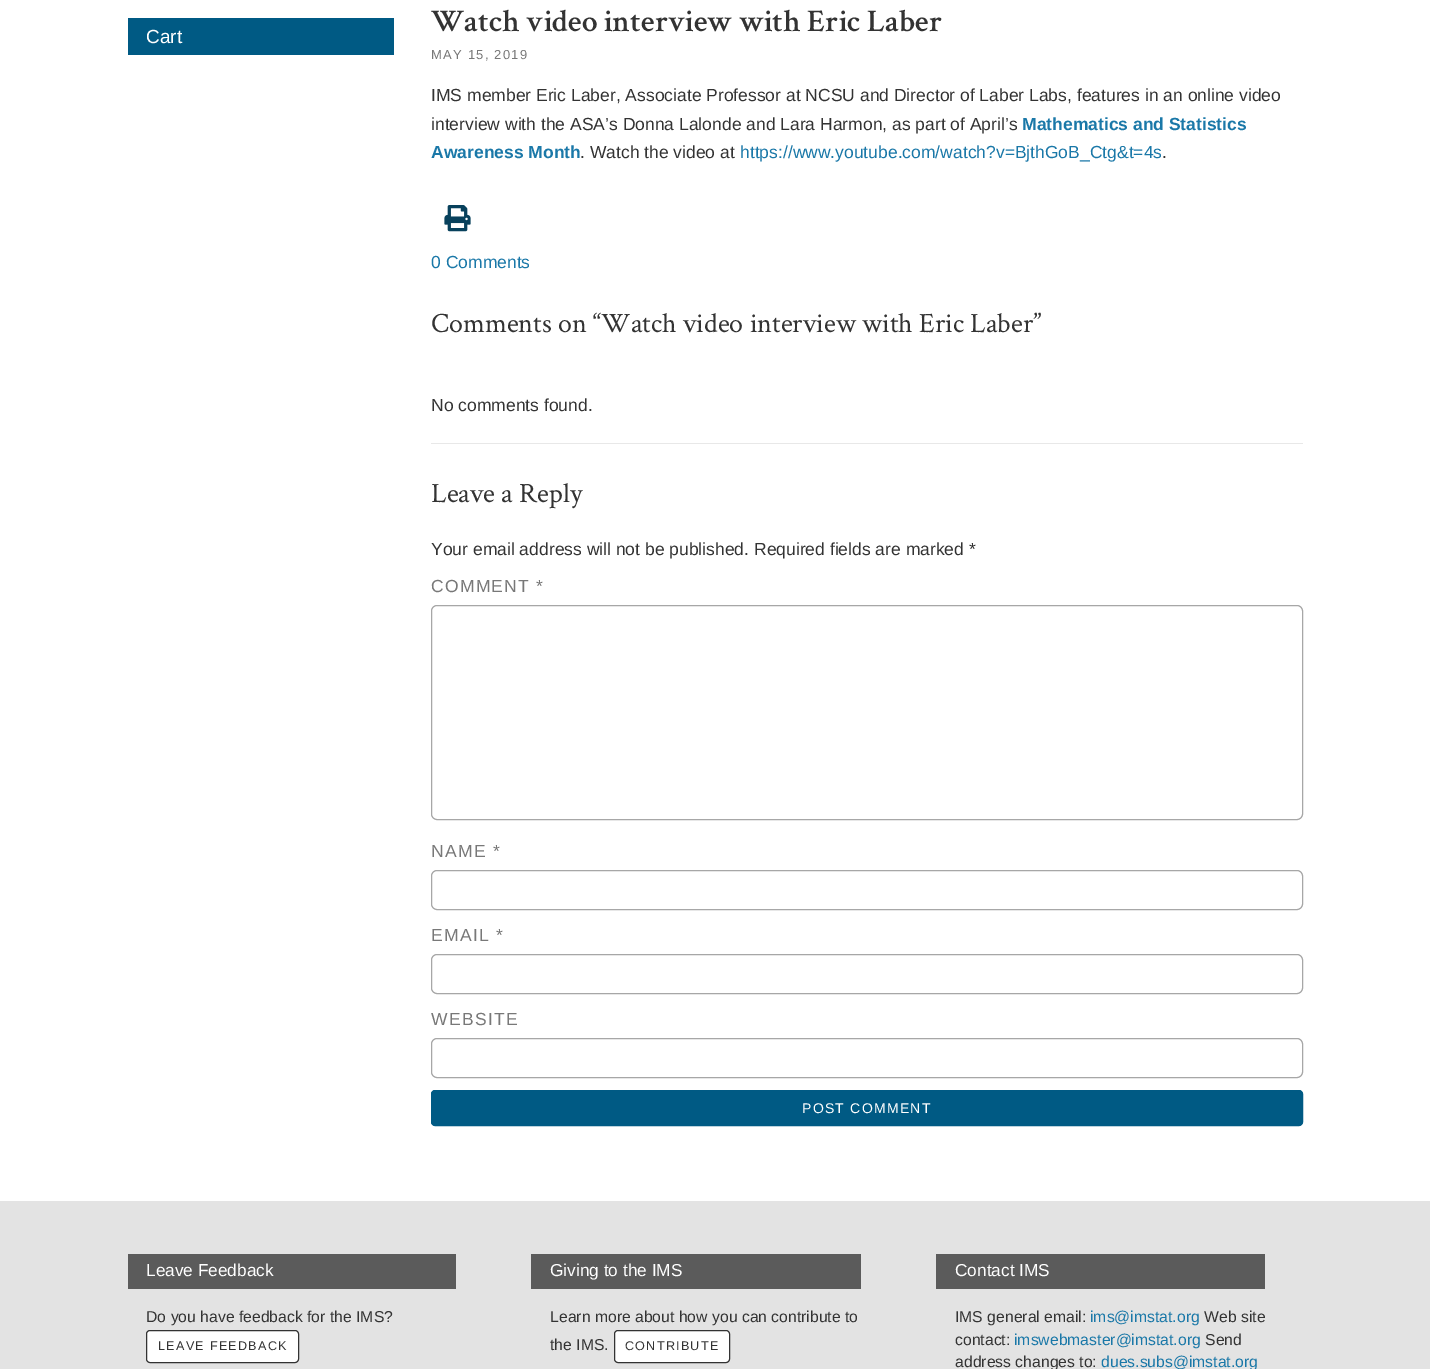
%!PS
<< /PageSize [1430 1369] >> setpagedevice
/rgb { 3 { 255 div 3 1 roll } repeat setrgbcolor } def
/font { [ exch dup neg 0 0 3 -1 roll 0 0 ] selectfont } def
/roundrect { 5 dict begin { /r /h /w /y /x } { exch def } forall
  x r add y moveto x w add y 2 copy h add r arct x w add y h add x 1 index r arct
  x y h add x y r arct x y 2 copy exch w add exch r arct closepath end } def
/picture { 5 dict begin { /h /w /y /x /name } { exch def } forall
  gsave x y translate w h scale
  w h 8 [w 0 0 h 0 0] name (r) file false 3 colorimage grestore end } def
0 1369 translate 1 -1 scale
4 setmiterlimit
255 255 255 rgb
0 0 1430 1369 rectfill
0 90 132 rgb
128 18 266 37 rectfill
(img/1.rgb) 444 205 27 27 picture
232 232 232 rgb
431 443 872 1 rectfill
167 167 167 rgb
431.5 605.5 871 214 5.5 roundrect stroke
431.5 870.5 871 39 5.5 roundrect stroke
431.5 954.5 871 39 5.5 roundrect stroke
431.5 1038.5 871 39 5.5 roundrect stroke
0 90 132 rgb
431.5 1090.5 871 35 3.5 roundrect gsave fill grestore
stroke
227 227 227 rgb
0 1201 1430 168 rectfill
91 91 91 rgb
128 1254 328 35 rectfill
255 255 255 rgb
146.5 1330.5 152 32 3.5 roundrect gsave fill grestore
51 51 51 rgb
stroke
91 91 91 rgb
531 1254 330 35 rectfill
255 255 255 rgb
614.5 1330.5 115 32 3.5 roundrect gsave fill grestore
51 51 51 rgb
stroke
91 91 91 rgb
936 1254 329 35 rectfill
/LiberationSans-Regular 19 font
255 255 255 rgb
146 43 moveto (Cart) show
/CrimsonText-SemiBold 31.5 font
51 51 51 rgb
431 31 moveto (Watch video interview with Eric Laber) show
/LiberationSans-Regular 13 font
120 120 120 rgb
431 59 moveto 1.25 0 (MAY 15, 2019) ashow
/LiberationSans-Regular 17.5 font
51 51 51 rgb
431 101 moveto (IMS member Eric Laber, Associate Professor at NCSU and Director of Laber Labs, features in an online video) show
431 130 moveto (interview with the ASA’s Donna Lalonde and Lara Harmon, as part of April’s) show
/LiberationSans-Bold 17.5 font
26 120 168 rgb
1022 130 moveto (Mathematics and Statistics) show
431 158 moveto (Awareness Month) show
/LiberationSans-Regular 17.5 font
51 51 51 rgb
580 158 moveto (. Watch the video at) show
26 120 168 rgb
740 158 moveto (https://www.youtube.com/watch?v=BjthGoB_Ctg&t=4s) show
51 51 51 rgb
1162 158 moveto (.) show
26 120 168 rgb
431 268 moveto (0 Comments) show
/CrimsonText-Regular 28 font
51 51 51 rgb
431 332 moveto (Comments on “Watch video interview with Eric Laber”) show
/LiberationSans-Regular 17.5 font
431 411 moveto (No comments found.) show
/CrimsonText-Regular 28 font
431 502 moveto (Leave a Reply) show
/LiberationSans-Regular 17.5 font
431 555 moveto (Your email address will not be published. Required fields are marked *) show
120 120 120 rgb
431 592 moveto 1.25 0 (COMMENT *) ashow
431 857 moveto 1.25 0 (NAME *) ashow
431 941 moveto 1.25 0 (EMAIL *) ashow
431 1025 moveto 1.25 0 (WEBSITE) ashow
/LiberationSans-Regular 14 font
255 255 255 rgb
802 1113 moveto 1.25 0 (POST COMMENT) ashow
/LiberationSans-Regular 17.25 font
146 1276 moveto (Leave Feedback) show
/LiberationSans-Regular 15.75 font
51 51 51 rgb
146 1322 moveto (Do you have feedback for the IMS?) show
/LiberationSans-Regular 12.6 font
158 1350 moveto 1.25 0 (LEAVE FEEDBACK) ashow
/LiberationSans-Regular 17.25 font
255 255 255 rgb
550 1276 moveto (Giving to the IMS) show
/LiberationSans-Regular 15.75 font
51 51 51 rgb
550 1322 moveto (Learn more about how you can contribute to) show
550 1350 moveto (the IMS.) show
/LiberationSans-Regular 12.6 font
625 1350 moveto 1.25 0 (CONTRIBUTE) ashow
/LiberationSans-Regular 17.25 font
255 255 255 rgb
955 1276 moveto (Contact IMS) show
/LiberationSans-Regular 15.75 font
51 51 51 rgb
955 1322 moveto (IMS general email:) show
26 120 168 rgb
1090 1322 moveto (ims@imstat.org) show
51 51 51 rgb
1204 1322 moveto (Web site) show
955 1345 moveto (contact:) show
26 120 168 rgb
1014 1345 moveto (imswebmaster@imstat.org) show
51 51 51 rgb
1205 1345 moveto (Send) show
955 1367 moveto (address changes to:) show
26 120 168 rgb
1101 1367 moveto (dues.subs@imstat.org) show
showpage
